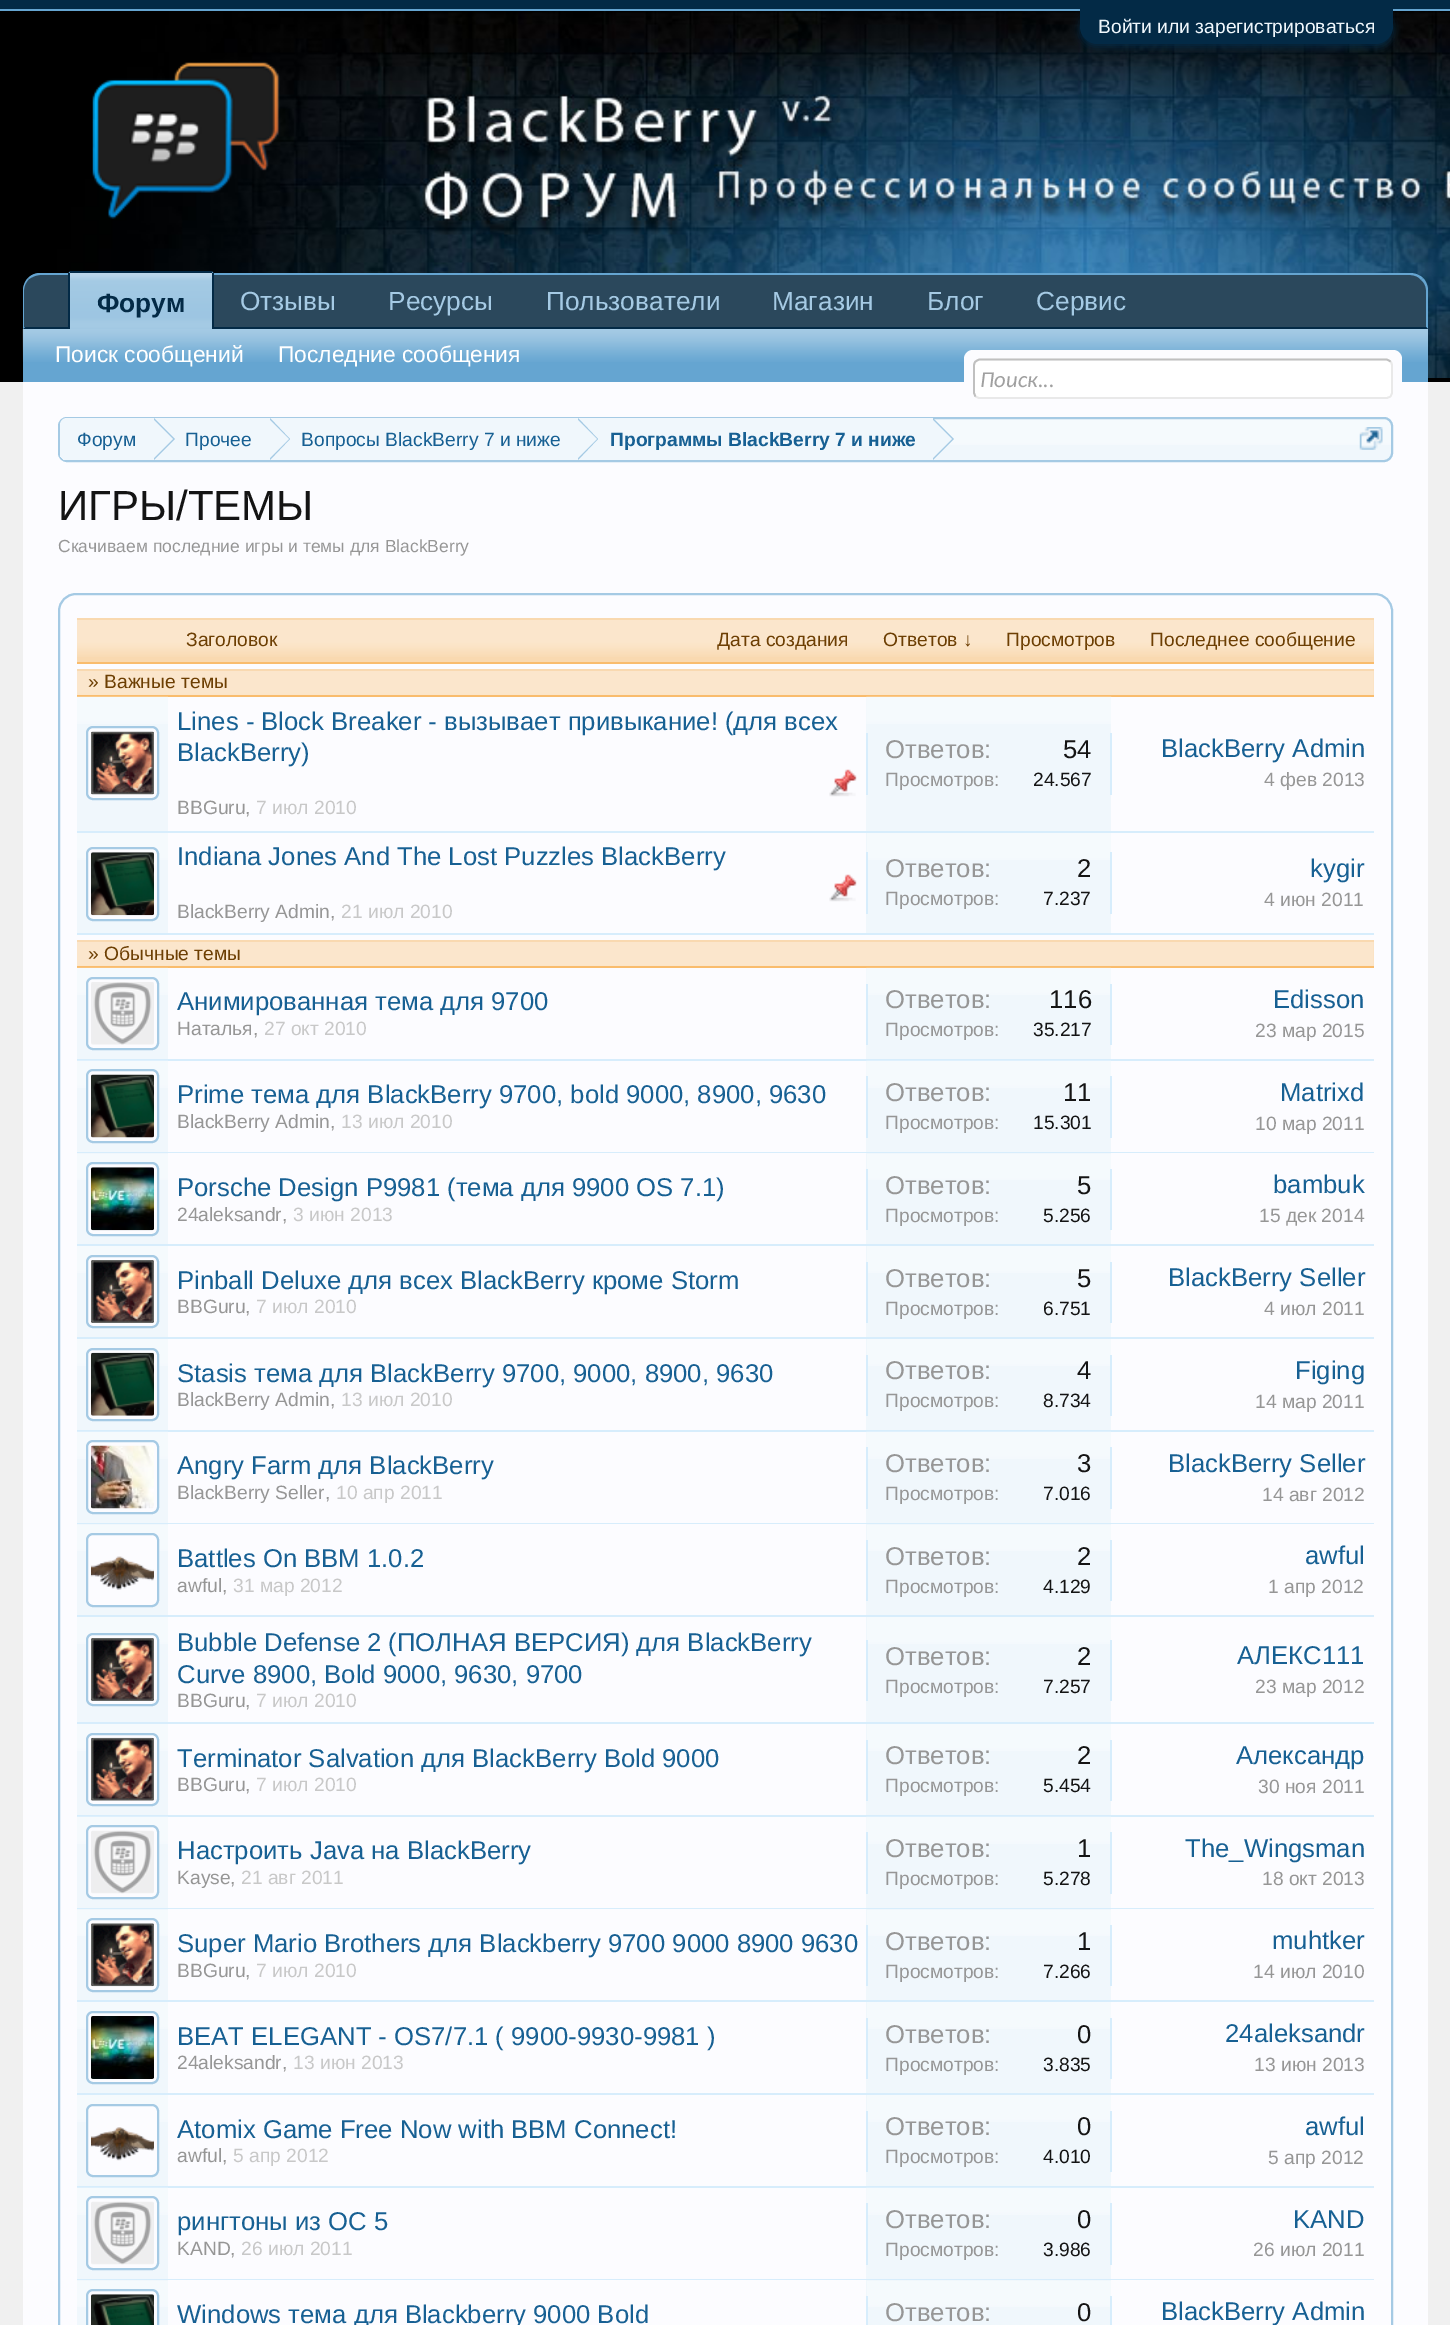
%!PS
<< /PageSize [1450 2325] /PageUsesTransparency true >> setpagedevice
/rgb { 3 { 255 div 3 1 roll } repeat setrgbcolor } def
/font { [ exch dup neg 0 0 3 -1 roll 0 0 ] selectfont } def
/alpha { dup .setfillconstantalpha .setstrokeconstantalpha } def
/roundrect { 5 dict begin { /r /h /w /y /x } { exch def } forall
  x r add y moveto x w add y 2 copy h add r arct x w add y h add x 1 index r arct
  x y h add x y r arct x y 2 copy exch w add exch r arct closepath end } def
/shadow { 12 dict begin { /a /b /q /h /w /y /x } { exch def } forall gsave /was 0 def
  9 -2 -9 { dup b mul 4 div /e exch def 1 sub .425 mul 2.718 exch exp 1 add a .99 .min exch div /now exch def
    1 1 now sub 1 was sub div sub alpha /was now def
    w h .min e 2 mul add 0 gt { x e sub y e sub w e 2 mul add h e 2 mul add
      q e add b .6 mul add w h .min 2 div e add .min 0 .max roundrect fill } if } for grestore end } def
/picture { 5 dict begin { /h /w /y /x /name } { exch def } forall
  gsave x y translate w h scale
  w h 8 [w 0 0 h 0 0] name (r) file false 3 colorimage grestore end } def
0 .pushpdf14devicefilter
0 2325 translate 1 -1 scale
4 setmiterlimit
240 240 240 rgb
0 0 1450 2325 rectfill
3 42 70 rgb
0 0 1450 9 rectfill
101 165 209 rgb
0 9 1450 2 rectfill
(img/1.rgb) 0 11 1450 367 picture
3 42 70 rgb
1080 12 313 35 17.5 4.5 1 shadow
1080 9 moveto 1393 9 lineto 1393 26.5 lineto 1393 36 1385 44 1375.5 44 curveto 1097.5 44 lineto 1088 44 1080 36 1080 26.5 curveto closepath fill
0 0 0 rgb
0 378 1450 4 rectfill
(img/2.rgb) 92 61 188 158 picture
43 72 92 rgb
41 273 moveto 1410 273 lineto 1420 273 1428 281 1428 291 curveto 1428 329 lineto 23 329 lineto 23 291 lineto 23 281 31 273 41 273 curveto closepath fill
101 165 209 rgb
40 273 moveto 35 273 31 275 28 278 curveto 29 279 lineto 32 277 36 275 40 275 curveto 1410 275 lineto 1415 275 1419 277 1421 280 curveto 1423 278 lineto 1420 275 1415 273 1410 273 curveto closepath fill
1428 329 moveto 1428 290 lineto 1428 286 1426 281 1423 278 curveto 1421 280 lineto 1424 282 1426 286 1426 290 curveto 1426 327 lineto closepath fill
3 42 70 rgb
1428 329 moveto 1426 327 lineto 25 327 lineto 23 329 lineto closepath fill
101 165 209 rgb
28 278 moveto 25 281 23 286 23 290 curveto 23 329 lineto 25 327 lineto 24 327 lineto 24 290 lineto 24 286 26 282 29 279 curveto closepath fill
72 271 moveto 210 271 lineto 212 271 214 273 214 275 curveto 214 329 lineto 68 329 lineto 68 275 lineto 68 273 70 271 72 271 curveto closepath fill
(img/3.rgb) 70 273 142 56 picture
[
  [70 271 142 2 3 42 70]
  [212 273 2 56 3 42 70]
  [68 273 2 56 3 42 70]
  [23 329 1405 53 101 165 209]
] { aload pop rgb rectfill } forall
(img/4.rgb) 22 329 1406 33 picture
252 252 255 rgb
23 382 1405 1943 rectfill
964 350 438 49 9 roundrect fill
255 255 255 rgb
973 359 420 40 7 roundrect fill
233 233 233 rgb
1.8 setlinewidth
1390.5 361.5 moveto 1391.5 362.5 1392 364 1392 366 curveto 1392 392 lineto 1392 393.5 1391.5 395 1390.5 396.5 curveto 1389 397.5 1387.5 398 1386 398 curveto 980 398 lineto 978.5 398 977 397.5 975.5 396.5 curveto stroke
192 192 192 rgb
975.5 396.5 moveto 974.5 395 974 393.5 974 392 curveto 974 366 lineto 974 364 974.5 362.5 975.5 361.5 curveto 977 360.5 978.5 359.5 980 359.5 curveto 1386 359.5 lineto 1387.5 359.5 1389 360.5 1390.5 361.5 curveto stroke
240 247 252 rgb
58 417 1335 45 9 roundrect fill
(img/5.rgb) 58 419 1335 26 picture
165 202 228 rgb
2 setlinewidth
59 418 1333 43 8 roundrect stroke
gsave
60 418 1331 42 7 roundrect clip newpath
240 247 252 rgb
67 418 moveto 154 418 lineto 154 462 lineto 67 462 lineto 63 462 60 459 60 455 curveto 60 425 lineto 60 421 63 418 67 418 curveto closepath fill
grestore
240 247 252 rgb
154 418 779 27 rectfill
165 202 228 rgb
154 460 moveto 154 418 lineto 175 439 lineto closepath fill
240 247 252 rgb
152 460 moveto 152 418 lineto 173 439 lineto closepath fill
165 202 228 rgb
270 460 moveto 270 418 lineto 290 439 lineto closepath fill
240 247 252 rgb
268 460 moveto 268 418 lineto 289 439 lineto closepath fill
165 202 228 rgb
578 460 moveto 578 418 lineto 598 439 lineto closepath fill
240 247 252 rgb
576 460 moveto 576 418 lineto 597 439 lineto closepath fill
165 202 228 rgb
933 460 moveto 933 418 lineto 954 439 lineto closepath fill
240 247 252 rgb
931 460 moveto 931 418 lineto 952 439 lineto closepath fill
(img/6.rgb) 1359 427 24 23 picture
165 202 228 rgb
59 594 1333 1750 17 roundrect stroke
249 217 176 rgb
77 618 1297 44 rectfill
(img/7.rgb) 77 620 1297 37 picture
249 188 109 rgb
77 662 1297 2 rectfill
249 217 176 rgb
77 669 1297 26 rectfill
(img/8.rgb) 77 671 1297 24 picture
[
  [77 695 1297 2 249 188 109]
  [77 831 1297 2 215 237 252]
  [77 697 91 134 240 247 252]
] { aload pop rgb rectfill } forall
(img/9.rgb) 77 696 91 28 picture
252 252 255 rgb
87 727 71 72 6 roundrect gsave fill grestore
165 202 228 rgb
stroke
(img/10.rgb) 91 731 63 64 picture
(img/11.rgb) 829 769 28 28 picture
240 247 252 rgb
866 697 245 134 rectfill
(img/12.rgb) 866 696 246 28 picture
[
  [1110 733 2 62 215 237 252]
  [866 733 2 62 215 237 252]
  [77 933 1297 2 215 237 252]
  [77 833 91 100 240 247 252]
] { aload pop rgb rectfill } forall
(img/13.rgb) 77 833 91 27 picture
252 252 255 rgb
87 848 71 72 6 roundrect gsave fill grestore
165 202 228 rgb
stroke
(img/14.rgb) 91 852 63 64 picture
(img/11.rgb) 829 874 28 28 picture
240 247 252 rgb
866 833 245 100 rectfill
(img/15.rgb) 867 833 244 27 picture
[
  [1110 852 2 62 215 237 252]
  [866 852 2 62 215 237 252]
  [77 940 1297 26 249 217 176]
] { aload pop rgb rectfill } forall
(img/16.rgb) 77 942 1297 24 picture
[
  [77 966 1297 2 249 188 109]
  [77 1059 1297 2 215 237 252]
  [77 968 91 91 240 247 252]
] { aload pop rgb rectfill } forall
(img/17.rgb) 77 967 91 28 picture
252 252 255 rgb
87 978 71 71 6 roundrect gsave fill grestore
165 202 228 rgb
stroke
(img/18.rgb) 91 982 63 63 picture
240 247 252 rgb
866 968 245 91 rectfill
(img/19.rgb) 866 967 245 28 picture
[
  [1110 984 2 61 215 237 252]
  [866 984 2 61 215 237 252]
  [77 1152 1297 1 215 237 252]
  [77 1061 91 91 240 247 252]
] { aload pop rgb rectfill } forall
(img/20.rgb) 77 1060 91 28 picture
252 252 255 rgb
87 1070 71 72 6 roundrect gsave fill grestore
165 202 228 rgb
stroke
(img/21.rgb) 91 1074 63 64 picture
240 247 252 rgb
866 1061 245 91 rectfill
(img/22.rgb) 866 1060 245 28 picture
[
  [1110 1076 2 62 215 237 252]
  [866 1076 2 62 215 237 252]
  [77 1244 1297 2 215 237 252]
  [77 1153 91 91 240 247 252]
] { aload pop rgb rectfill } forall
(img/23.rgb) 77 1154 91 26 picture
252 252 255 rgb
87 1163 71 72 6 roundrect gsave fill grestore
165 202 228 rgb
stroke
(img/24.rgb) 91 1167 63 64 picture
240 247 252 rgb
866 1153 245 91 rectfill
(img/25.rgb) 867 1154 244 26 picture
[
  [1110 1169 2 61 215 237 252]
  [866 1169 2 61 215 237 252]
  [77 1337 1297 2 215 237 252]
  [77 1246 91 91 240 247 252]
] { aload pop rgb rectfill } forall
(img/13.rgb) 77 1246 91 27 picture
252 252 255 rgb
87 1256 71 71 6 roundrect gsave fill grestore
165 202 228 rgb
stroke
(img/26.rgb) 91 1260 63 63 picture
240 247 252 rgb
866 1246 245 91 rectfill
(img/15.rgb) 867 1246 244 27 picture
[
  [1110 1262 2 61 215 237 252]
  [866 1262 2 61 215 237 252]
  [77 1430 1297 2 215 237 252]
  [77 1339 91 91 240 247 252]
] { aload pop rgb rectfill } forall
(img/27.rgb) 77 1339 91 27 picture
252 252 255 rgb
87 1349 71 71 6 roundrect gsave fill grestore
165 202 228 rgb
stroke
(img/28.rgb) 91 1352 63 64 picture
240 247 252 rgb
866 1339 245 91 rectfill
(img/29.rgb) 867 1339 244 27 picture
[
  [1110 1355 2 61 215 237 252]
  [866 1355 2 61 215 237 252]
  [77 1523 1297 1 215 237 252]
  [77 1432 91 91 240 247 252]
] { aload pop rgb rectfill } forall
(img/20.rgb) 77 1431 91 28 picture
252 252 255 rgb
87 1441 71 72 6 roundrect gsave fill grestore
165 202 228 rgb
stroke
(img/30.rgb) 91 1445 63 64 picture
240 247 252 rgb
866 1432 245 91 rectfill
(img/31.rgb) 866 1431 245 28 picture
[
  [1110 1447 2 62 215 237 252]
  [866 1447 2 62 215 237 252]
  [77 1615 1297 2 215 237 252]
  [77 1524 91 91 240 247 252]
] { aload pop rgb rectfill } forall
(img/23.rgb) 77 1525 91 26 picture
252 252 255 rgb
87 1534 71 72 6 roundrect gsave fill grestore
165 202 228 rgb
stroke
(img/32.rgb) 91 1556 63 34 picture
240 247 252 rgb
866 1524 245 91 rectfill
(img/33.rgb) 867 1525 244 26 picture
[
  [1110 1540 2 61 215 237 252]
  [866 1540 2 61 215 237 252]
  [77 1722 1297 2 215 237 252]
  [77 1617 91 105 240 247 252]
] { aload pop rgb rectfill } forall
(img/13.rgb) 77 1617 91 27 picture
252 252 255 rgb
87 1634 71 71 6 roundrect gsave fill grestore
165 202 228 rgb
stroke
(img/26.rgb) 91 1638 63 63 picture
240 247 252 rgb
866 1617 245 105 rectfill
(img/15.rgb) 867 1617 244 27 picture
[
  [1110 1640 2 61 215 237 252]
  [866 1640 2 61 215 237 252]
  [77 1815 1297 2 215 237 252]
  [77 1724 91 91 240 247 252]
] { aload pop rgb rectfill } forall
(img/27.rgb) 77 1724 91 27 picture
252 252 255 rgb
87 1734 71 71 6 roundrect gsave fill grestore
165 202 228 rgb
stroke
(img/34.rgb) 91 1737 63 64 picture
240 247 252 rgb
866 1724 245 91 rectfill
(img/35.rgb) 867 1724 244 27 picture
[
  [1110 1740 2 61 215 237 252]
  [866 1740 2 61 215 237 252]
  [77 1908 1297 1 215 237 252]
  [77 1817 91 91 240 247 252]
] { aload pop rgb rectfill } forall
(img/20.rgb) 77 1816 91 28 picture
252 252 255 rgb
87 1826 71 72 6 roundrect gsave fill grestore
165 202 228 rgb
stroke
(img/36.rgb) 91 1830 63 64 picture
240 247 252 rgb
866 1817 245 91 rectfill
(img/37.rgb) 866 1816 245 28 picture
[
  [1110 1832 2 62 215 237 252]
  [866 1832 2 62 215 237 252]
  [77 2000 1297 2 215 237 252]
  [77 1909 91 91 240 247 252]
] { aload pop rgb rectfill } forall
(img/23.rgb) 77 1910 91 26 picture
252 252 255 rgb
87 1919 71 72 6 roundrect gsave fill grestore
165 202 228 rgb
stroke
(img/38.rgb) 91 1923 63 64 picture
240 247 252 rgb
866 1909 245 91 rectfill
(img/25.rgb) 867 1910 244 26 picture
[
  [1110 1925 2 61 215 237 252]
  [866 1925 2 61 215 237 252]
  [77 2093 1297 2 215 237 252]
  [77 2002 91 91 240 247 252]
] { aload pop rgb rectfill } forall
(img/13.rgb) 77 2002 91 27 picture
252 252 255 rgb
87 2012 71 71 6 roundrect gsave fill grestore
165 202 228 rgb
stroke
(img/39.rgb) 91 2016 63 63 picture
240 247 252 rgb
866 2002 245 91 rectfill
(img/15.rgb) 867 2002 244 27 picture
[
  [1110 2018 2 61 215 237 252]
  [866 2018 2 61 215 237 252]
  [77 2186 1297 2 215 237 252]
  [77 2095 91 91 240 247 252]
] { aload pop rgb rectfill } forall
(img/27.rgb) 77 2095 91 27 picture
252 252 255 rgb
87 2105 71 71 6 roundrect gsave fill grestore
165 202 228 rgb
stroke
(img/40.rgb) 91 2127 63 34 picture
240 247 252 rgb
866 2095 245 91 rectfill
(img/35.rgb) 867 2095 244 27 picture
[
  [1110 2111 2 61 215 237 252]
  [866 2111 2 61 215 237 252]
  [77 2279 1297 1 215 237 252]
  [77 2188 91 91 240 247 252]
] { aload pop rgb rectfill } forall
(img/20.rgb) 77 2187 91 28 picture
252 252 255 rgb
87 2197 71 72 6 roundrect gsave fill grestore
165 202 228 rgb
stroke
(img/36.rgb) 91 2201 63 64 picture
240 247 252 rgb
866 2188 245 91 rectfill
(img/37.rgb) 866 2187 245 28 picture
[
  [1110 2203 2 62 215 237 252]
  [866 2203 2 62 215 237 252]
  [77 2280 91 45 240 247 252]
] { aload pop rgb rectfill } forall
(img/23.rgb) 77 2281 91 26 picture
252 252 255 rgb
87 2290 71 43 6 roundrect gsave fill grestore
165 202 228 rgb
stroke
(img/41.rgb) 91 2294 63 31 picture
240 247 252 rgb
866 2280 245 45 rectfill
(img/33.rgb) 867 2281 244 26 picture
215 237 252 rgb
1110 2296 2 29 rectfill
866 2296 2 29 rectfill
/LiberationSans-Regular 19.25 font
240 247 252 rgb
1098 33 moveto (Войти или зарегистрироваться) show
/LiberationSans-Regular 26.25 font
165 202 228 rgb
[
  [(Отзывы) 240 310]
  [(Ресурсы) 388 310]
  [(Пользователи) 546 310]
  [(Магазин) 772 310]
  [(Блог) 927 310]
  [(Сервис) 1036 310]
] { aload pop moveto show } forall
/LiberationSans-Bold 26.25 font
3 42 70 rgb
97 312 moveto (Форум) show
/LiberationSans-Regular 22.75 font
255 255 255 rgb
55 362 moveto (Поиск сообщений) show
278 362 moveto (Последние сообщения) show
/Carlito-Italic 22.75 font
160 160 160 rgb
980 387 moveto (Поиск...) show
/LiberationSans-Regular 19.25 font
23 96 147 rgb
[
  [(Форум) 77 446]
  [(Прочее) 185 446]
  [(Вопросы BlackBerry 7 и ниже) 301 446]
] { aload pop moveto show } forall
gsave
609 418 306 42 rectclip
/LiberationSans-Bold 19.25 font
610 446 moveto (Программы BlackBerry 7 и ниже) show
grestore
/LiberationSans-Regular 42 font
20 20 20 rgb
58 520 moveto (ИГРЫ/ТЕМЫ) show
/LiberationSans-Regular 17.5 font
150 150 150 rgb
58 552 moveto (Скачиваем последние игры и темы для BlackBerry) show
/LiberationSans-Regular 19.25 font
109 63 3 rgb
[
  [(Заголовок) 186 646]
  [(Дата создания) 717 646]
  [(Ответов ↓) 883 646]
  [(Просмотров) 1006 646]
  [(Последнее сообщение) 1150 646]
  [(» Важные темы) 88 688]
] { aload pop moveto show } forall
/LiberationSans-Regular 25.7 font
23 96 147 rgb
177 730 moveto (Lines - Block Breaker - вызывает привыкание! \(для всех) show
177 761 moveto (BlackBerry\)) show
/LiberationSans-Regular 19.25 font
150 150 150 rgb
177 814 moveto (BBGuru,) show
200 200 200 rgb
256 814 moveto (7 июл 2010) show
/LiberationSans-Regular 25.7 font
150 150 150 rgb
885 758 moveto (Ответов:) show
20 20 20 rgb
1063 758 moveto (54) show
/LiberationSans-Regular 19.25 font
150 150 150 rgb
885 786 moveto (Просмотров:) show
20 20 20 rgb
1033 786 moveto (24.567) show
/LiberationSans-Regular 25.7 font
23 96 147 rgb
1161 757 moveto (BlackBerry Admin) show
/LiberationSans-Regular 19.25 font
150 150 150 rgb
1264 786 moveto (4 фев 2013) show
/LiberationSans-Regular 25.7 font
23 96 147 rgb
177 865 moveto (Indiana Jones And The Lost Puzzles BlackBerry) show
/LiberationSans-Regular 19.25 font
150 150 150 rgb
177 918 moveto (BlackBerry Admin,) show
200 200 200 rgb
341 918 moveto (21 июл 2010) show
/LiberationSans-Regular 25.7 font
150 150 150 rgb
885 877 moveto (Ответов:) show
20 20 20 rgb
1077 877 moveto (2) show
/LiberationSans-Regular 19.25 font
150 150 150 rgb
885 905 moveto (Просмотров:) show
20 20 20 rgb
1043 905 moveto (7.237) show
/LiberationSans-Regular 25.7 font
23 96 147 rgb
1310 877 moveto (kygir) show
/LiberationSans-Regular 19.25 font
150 150 150 rgb
1264 906 moveto (4 июн 2011) show
109 63 3 rgb
88 960 moveto (» Обычные темы) show
/LiberationSans-Regular 25.7 font
23 96 147 rgb
177 1010 moveto (Анимированная тема для 9700) show
/LiberationSans-Regular 19.25 font
150 150 150 rgb
177 1035 moveto (Наталья,) show
200 200 200 rgb
264 1035 moveto (27 окт 2010) show
/LiberationSans-Regular 25.7 font
150 150 150 rgb
885 1008 moveto (Ответов:) show
20 20 20 rgb
1049 1008 moveto (116) show
/LiberationSans-Regular 19.25 font
150 150 150 rgb
885 1036 moveto (Просмотров:) show
20 20 20 rgb
1033 1036 moveto (35.217) show
/LiberationSans-Regular 25.7 font
23 96 147 rgb
1273 1008 moveto (Edisson) show
/LiberationSans-Regular 19.25 font
150 150 150 rgb
1255 1037 moveto (23 мар 2015) show
/LiberationSans-Regular 25.7 font
23 96 147 rgb
177 1103 moveto (Prime тема для BlackBerry 9700, bold 9000, 8900, 9630) show
/LiberationSans-Regular 19.25 font
150 150 150 rgb
177 1128 moveto (BlackBerry Admin,) show
200 200 200 rgb
341 1128 moveto (13 июл 2010) show
/LiberationSans-Regular 25.7 font
150 150 150 rgb
885 1101 moveto (Ответов:) show
20 20 20 rgb
1063 1101 moveto (11) show
/LiberationSans-Regular 19.25 font
150 150 150 rgb
885 1129 moveto (Просмотров:) show
20 20 20 rgb
1033 1129 moveto (15.301) show
/LiberationSans-Regular 25.7 font
23 96 147 rgb
1280 1101 moveto (Matrixd) show
/LiberationSans-Regular 19.25 font
150 150 150 rgb
1255 1130 moveto (10 мар 2011) show
/LiberationSans-Regular 25.7 font
23 96 147 rgb
177 1196 moveto (Porsche Design P9981 \(тема для 9900 OS 7.1\)) show
/LiberationSans-Regular 19.25 font
150 150 150 rgb
177 1221 moveto (24aleksandr,) show
200 200 200 rgb
293 1221 moveto (3 июн 2013) show
/LiberationSans-Regular 25.7 font
150 150 150 rgb
885 1194 moveto (Ответов:) show
20 20 20 rgb
1077 1194 moveto (5) show
/LiberationSans-Regular 19.25 font
150 150 150 rgb
885 1222 moveto (Просмотров:) show
20 20 20 rgb
1043 1222 moveto (5.256) show
/LiberationSans-Regular 25.7 font
23 96 147 rgb
1273 1193 moveto (bambuk) show
/LiberationSans-Regular 19.25 font
150 150 150 rgb
1259 1222 moveto (15 дек 2014) show
/LiberationSans-Regular 25.7 font
23 96 147 rgb
177 1289 moveto (Pinball Deluxe для всех BlackBerry кроме Storm) show
/LiberationSans-Regular 19.25 font
150 150 150 rgb
177 1313 moveto (BBGuru,) show
200 200 200 rgb
256 1313 moveto (7 июл 2010) show
/LiberationSans-Regular 25.7 font
150 150 150 rgb
885 1287 moveto (Ответов:) show
20 20 20 rgb
1077 1287 moveto (5) show
/LiberationSans-Regular 19.25 font
150 150 150 rgb
885 1315 moveto (Просмотров:) show
20 20 20 rgb
1043 1315 moveto (6.751) show
/LiberationSans-Regular 25.7 font
23 96 147 rgb
1168 1286 moveto (BlackBerry Seller) show
/LiberationSans-Regular 19.25 font
150 150 150 rgb
1264 1315 moveto (4 июл 2011) show
/LiberationSans-Regular 25.7 font
23 96 147 rgb
177 1382 moveto (Stasis тема для BlackBerry 9700, 9000, 8900, 9630) show
/LiberationSans-Regular 19.25 font
150 150 150 rgb
177 1406 moveto (BlackBerry Admin,) show
200 200 200 rgb
341 1406 moveto (13 июл 2010) show
/LiberationSans-Regular 25.7 font
150 150 150 rgb
885 1379 moveto (Ответов:) show
20 20 20 rgb
1077 1379 moveto (4) show
/LiberationSans-Regular 19.25 font
150 150 150 rgb
885 1407 moveto (Просмотров:) show
20 20 20 rgb
1043 1407 moveto (8.734) show
/LiberationSans-Regular 25.7 font
23 96 147 rgb
1295 1379 moveto (Figing) show
/LiberationSans-Regular 19.25 font
150 150 150 rgb
1255 1408 moveto (14 мар 2011) show
/LiberationSans-Regular 25.7 font
23 96 147 rgb
177 1474 moveto (Angry Farm для BlackBerry) show
/LiberationSans-Regular 19.25 font
150 150 150 rgb
177 1499 moveto (BlackBerry Seller,) show
200 200 200 rgb
336 1499 moveto (10 апр 2011) show
/LiberationSans-Regular 25.7 font
150 150 150 rgb
885 1472 moveto (Ответов:) show
20 20 20 rgb
1077 1472 moveto (3) show
/LiberationSans-Regular 19.25 font
150 150 150 rgb
885 1500 moveto (Просмотров:) show
20 20 20 rgb
1043 1500 moveto (7.016) show
/LiberationSans-Regular 25.7 font
23 96 147 rgb
1168 1472 moveto (BlackBerry Seller) show
/LiberationSans-Regular 19.25 font
150 150 150 rgb
1262 1501 moveto (14 авг 2012) show
/LiberationSans-Regular 25.7 font
23 96 147 rgb
177 1567 moveto (Battles On BBM 1.0.2) show
/LiberationSans-Regular 19.25 font
150 150 150 rgb
177 1592 moveto (awful,) show
200 200 200 rgb
233 1592 moveto (31 мар 2012) show
/LiberationSans-Regular 25.7 font
150 150 150 rgb
885 1565 moveto (Ответов:) show
20 20 20 rgb
1077 1565 moveto (2) show
/LiberationSans-Regular 19.25 font
150 150 150 rgb
885 1593 moveto (Просмотров:) show
20 20 20 rgb
1043 1593 moveto (4.129) show
/LiberationSans-Regular 25.7 font
23 96 147 rgb
1305 1564 moveto (awful) show
/LiberationSans-Regular 19.25 font
150 150 150 rgb
1268 1593 moveto (1 апр 2012) show
/LiberationSans-Regular 25.7 font
23 96 147 rgb
177 1651 moveto (Bubble Defense 2 \(ПОЛНАЯ ВЕРСИЯ\) для BlackBerry) show
177 1683 moveto (Curve 8900, Bold 9000, 9630, 9700) show
/LiberationSans-Regular 19.25 font
150 150 150 rgb
177 1707 moveto (BBGuru,) show
200 200 200 rgb
256 1707 moveto (7 июл 2010) show
/LiberationSans-Regular 25.7 font
150 150 150 rgb
885 1665 moveto (Ответов:) show
20 20 20 rgb
1077 1665 moveto (2) show
/LiberationSans-Regular 19.25 font
150 150 150 rgb
885 1693 moveto (Просмотров:) show
20 20 20 rgb
1043 1693 moveto (7.257) show
/LiberationSans-Regular 25.7 font
23 96 147 rgb
1237 1664 moveto (АЛЕКС111) show
/LiberationSans-Regular 19.25 font
150 150 150 rgb
1255 1693 moveto (23 мар 2012) show
/LiberationSans-Regular 25.7 font
23 96 147 rgb
177 1767 moveto (Terminator Salvation для BlackBerry Bold 9000) show
/LiberationSans-Regular 19.25 font
150 150 150 rgb
177 1791 moveto (BBGuru,) show
200 200 200 rgb
256 1791 moveto (7 июл 2010) show
/LiberationSans-Regular 25.7 font
150 150 150 rgb
885 1764 moveto (Ответов:) show
20 20 20 rgb
1077 1764 moveto (2) show
/LiberationSans-Regular 19.25 font
150 150 150 rgb
885 1792 moveto (Просмотров:) show
20 20 20 rgb
1043 1792 moveto (5.454) show
/LiberationSans-Regular 25.7 font
23 96 147 rgb
1236 1764 moveto (Алексaндр) show
/LiberationSans-Regular 19.25 font
150 150 150 rgb
1258 1793 moveto (30 ноя 2011) show
/LiberationSans-Regular 25.7 font
23 96 147 rgb
177 1859 moveto (Настроить Java на BlackBerry) show
/LiberationSans-Regular 19.25 font
150 150 150 rgb
177 1884 moveto (Kayse,) show
200 200 200 rgb
241 1884 moveto (21 авг 2011) show
/LiberationSans-Regular 25.7 font
150 150 150 rgb
885 1857 moveto (Ответов:) show
20 20 20 rgb
1077 1857 moveto (1) show
/LiberationSans-Regular 19.25 font
150 150 150 rgb
885 1885 moveto (Просмотров:) show
20 20 20 rgb
1043 1885 moveto (5.278) show
/LiberationSans-Regular 25.7 font
23 96 147 rgb
1185 1857 moveto (The_Wingsman) show
/LiberationSans-Regular 19.25 font
150 150 150 rgb
1262 1885 moveto (18 окт 2013) show
/LiberationSans-Regular 25.7 font
23 96 147 rgb
177 1952 moveto (Super Mario Brothers для Blackberry 9700 9000 8900 9630) show
/LiberationSans-Regular 19.25 font
150 150 150 rgb
177 1977 moveto (BBGuru,) show
200 200 200 rgb
256 1977 moveto (7 июл 2010) show
/LiberationSans-Regular 25.7 font
150 150 150 rgb
885 1950 moveto (Ответов:) show
20 20 20 rgb
1077 1950 moveto (1) show
/LiberationSans-Regular 19.25 font
150 150 150 rgb
885 1978 moveto (Просмотров:) show
20 20 20 rgb
1043 1978 moveto (7.266) show
/LiberationSans-Regular 25.7 font
23 96 147 rgb
1272 1949 moveto (muhtker) show
/LiberationSans-Regular 19.25 font
150 150 150 rgb
1253 1978 moveto (14 июл 2010) show
/LiberationSans-Regular 25.7 font
23 96 147 rgb
177 2045 moveto (BEAT ELEGANT - OS7/7.1 \( 9900-9930-9981 \)) show
/LiberationSans-Regular 19.25 font
150 150 150 rgb
177 2069 moveto (24aleksandr,) show
200 200 200 rgb
293 2069 moveto (13 июн 2013) show
/LiberationSans-Regular 25.7 font
150 150 150 rgb
885 2043 moveto (Ответов:) show
20 20 20 rgb
1077 2043 moveto (0) show
/LiberationSans-Regular 19.25 font
150 150 150 rgb
885 2071 moveto (Просмотров:) show
20 20 20 rgb
1043 2071 moveto (3.835) show
/LiberationSans-Regular 25.7 font
23 96 147 rgb
1225 2042 moveto (24aleksandr) show
/LiberationSans-Regular 19.25 font
150 150 150 rgb
1254 2071 moveto (13 июн 2013) show
/LiberationSans-Regular 25.7 font
23 96 147 rgb
177 2138 moveto (Atomix Game Free Now with BBM Connect!) show
/LiberationSans-Regular 19.25 font
150 150 150 rgb
177 2162 moveto (awful,) show
200 200 200 rgb
233 2162 moveto (5 апр 2012) show
/LiberationSans-Regular 25.7 font
150 150 150 rgb
885 2135 moveto (Ответов:) show
20 20 20 rgb
1077 2135 moveto (0) show
/LiberationSans-Regular 19.25 font
150 150 150 rgb
885 2163 moveto (Просмотров:) show
20 20 20 rgb
1043 2163 moveto (4.010) show
/LiberationSans-Regular 25.7 font
23 96 147 rgb
1305 2135 moveto (awful) show
/LiberationSans-Regular 19.25 font
150 150 150 rgb
1268 2164 moveto (5 апр 2012) show
/LiberationSans-Regular 25.7 font
23 96 147 rgb
177 2230 moveto (рингтоны из ОС 5) show
/LiberationSans-Regular 19.25 font
150 150 150 rgb
177 2255 moveto (KAND,) show
200 200 200 rgb
241 2255 moveto (26 июл 2011) show
/LiberationSans-Regular 25.7 font
150 150 150 rgb
885 2228 moveto (Ответов:) show
20 20 20 rgb
1077 2228 moveto (0) show
/LiberationSans-Regular 19.25 font
150 150 150 rgb
885 2256 moveto (Просмотров:) show
20 20 20 rgb
1043 2256 moveto (3.986) show
/LiberationSans-Regular 25.7 font
23 96 147 rgb
1293 2228 moveto (KAND) show
/LiberationSans-Regular 19.25 font
150 150 150 rgb
1253 2256 moveto (26 июл 2011) show
/LiberationSans-Regular 25.7 font
23 96 147 rgb
177 2323 moveto (Windows тема для Blackberry 9000 Bold) show
150 150 150 rgb
885 2321 moveto (Ответов:) show
20 20 20 rgb
1077 2321 moveto (0) show
23 96 147 rgb
1161 2320 moveto (BlackBerry Admin) show
.poppdf14devicefilter showpage
